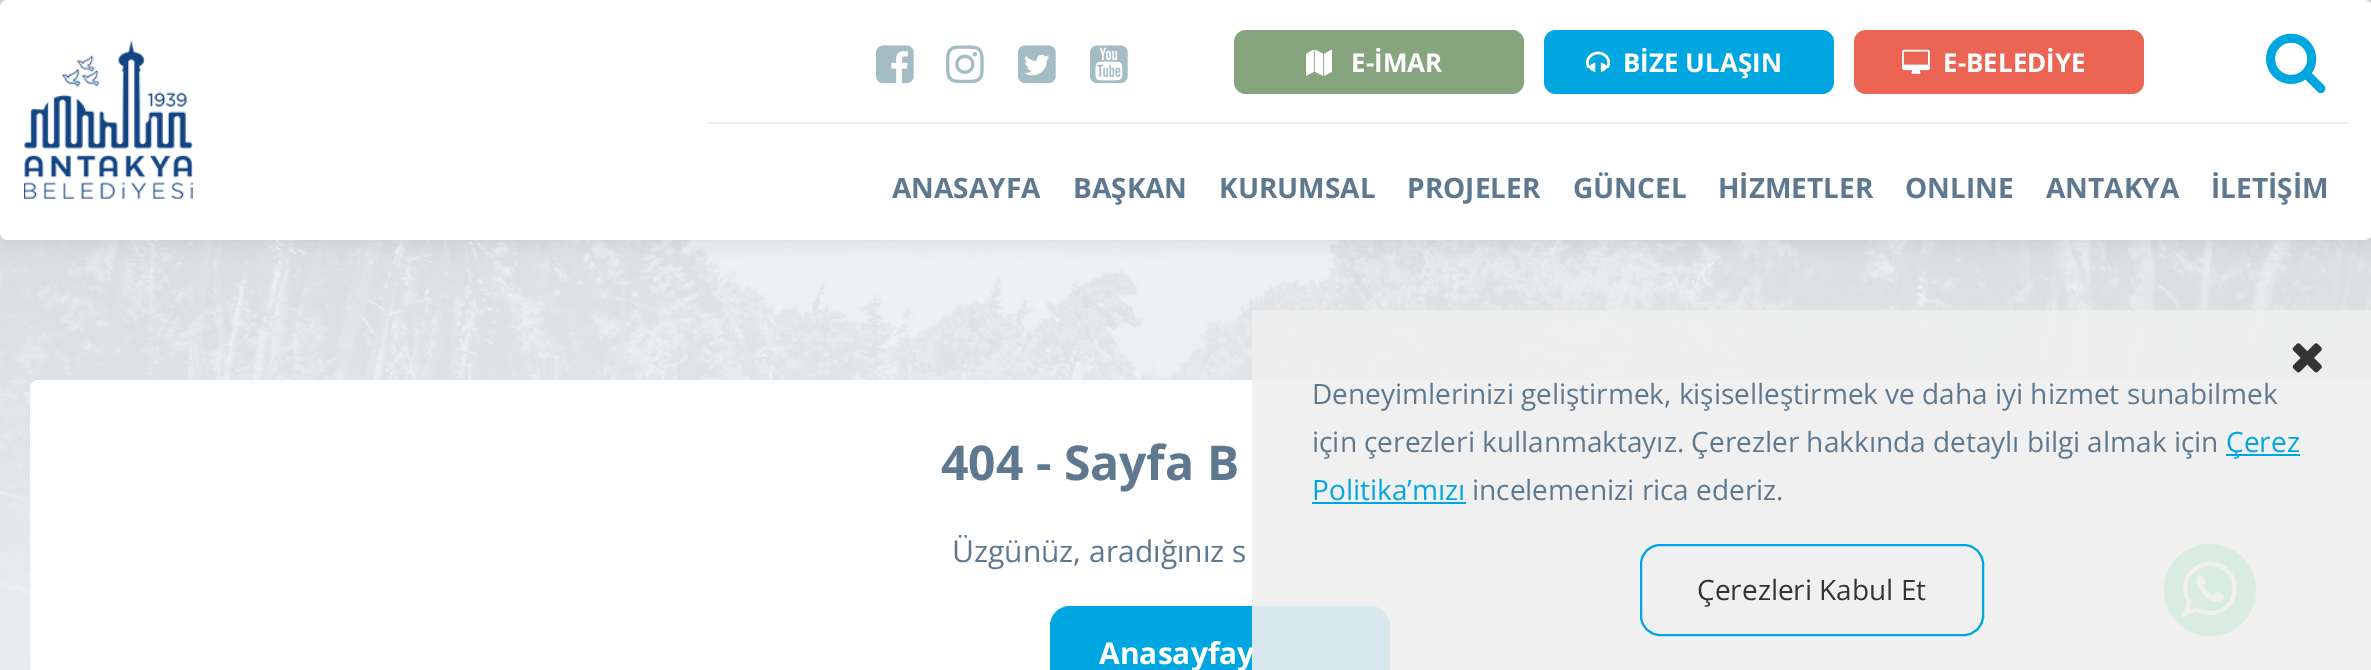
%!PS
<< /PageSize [2371 670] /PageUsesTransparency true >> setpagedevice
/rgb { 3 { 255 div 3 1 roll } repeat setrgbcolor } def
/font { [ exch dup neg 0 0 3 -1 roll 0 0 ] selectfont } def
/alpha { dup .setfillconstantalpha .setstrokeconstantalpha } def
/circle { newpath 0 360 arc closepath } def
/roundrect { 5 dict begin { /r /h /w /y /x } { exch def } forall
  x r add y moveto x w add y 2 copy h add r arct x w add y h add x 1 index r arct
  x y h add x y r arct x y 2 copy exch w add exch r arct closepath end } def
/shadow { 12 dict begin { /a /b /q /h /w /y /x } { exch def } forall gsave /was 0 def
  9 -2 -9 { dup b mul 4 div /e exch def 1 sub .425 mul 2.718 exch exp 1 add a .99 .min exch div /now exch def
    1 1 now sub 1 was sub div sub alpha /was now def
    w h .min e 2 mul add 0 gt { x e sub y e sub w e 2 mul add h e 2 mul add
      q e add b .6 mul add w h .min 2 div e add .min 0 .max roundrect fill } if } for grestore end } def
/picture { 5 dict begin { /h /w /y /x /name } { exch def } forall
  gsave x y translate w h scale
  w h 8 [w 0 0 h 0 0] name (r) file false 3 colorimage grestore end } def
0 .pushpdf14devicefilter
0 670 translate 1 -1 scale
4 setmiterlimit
255 255 255 rgb
0 0 2371 670 rectfill
(img/1.rgb) 0 0 2371 670 picture
0 0 0 rgb
0 0 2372 240 8 10 0.1 shadow
255 255 255 rgb
0 0 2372 240 8 roundrect fill
(img/2.rgb) 24 41 169 158 picture
232 237 239 rgb
708 122 1640 2 rectfill
(img/3.rgb) 876 45 38 39 picture
(img/4.rgb) 946 45 38 39 picture
(img/5.rgb) 1018 45 38 39 picture
(img/6.rgb) 1090 45 38 39 picture
134 165 127 rgb
1234 30 290 64 12 roundrect fill
(img/7.rgb) 1306 49 26 27 picture
0 166 223 rgb
1544 30 290 64 12 roundrect fill
(img/8.rgb) 1586 51 25 21 picture
236 100 83 rgb
1854 30 290 64 12 roundrect fill
(img/9.rgb) 1902 49 28 25 picture
(img/10.rgb) 2266 33 60 61 picture
255 255 255 rgb
30 380 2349 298 8 roundrect fill
0 166 223 rgb
1050 606 340 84 20 roundrect fill
37 211 102 rgb
2210 590 46 circle fill
(img/12.rgb) 2182 561 55 56 picture
/OpenSans-Bold 26 font
255 255 255 rgb
[
  [(E-İMAR) 1351 72]
  [(BİZE ULAŞIN) 1623 72]
  [(E-BELEDİYE) 1943 72]
] { aload pop moveto show } forall
/OpenSans-Bold 28 font
94 120 143 rgb
[
  [(ANASAYFA) 892 198]
  [(BAŞKAN) 1073 198]
  [(KURUMSAL) 1219 198]
  [(PROJELER) 1407 198]
  [(GÜNCEL) 1573 198]
  [(HİZMETLER) 1718 198]
  [(ONLINE) 1905 198]
  [(ANTAKYA) 2046 198]
  [(İLETİŞİM) 2211 198]
] { aload pop moveto show } forall
/OpenSans-Bold 48 font
941 480 moveto (404 - Sayfa B) show
/OpenSans-Regular 30 font
952 562 moveto (Üzgünüz, aradığınız s) show
/OpenSans-Bold 30 font
255 255 255 rgb
1099 664 moveto (Anasayfay) show
0.9 alpha
238 238 238 rgb
1252 310 1119 360 rectfill
1 alpha
(img/11.rgb) 2292 343 30 30 picture
/OpenSans-Regular 28 font
94 120 143 rgb
1312 404 moveto (Deneyimlerinizi geliştirmek, kişiselleştirmek ve daha iyi hizmet sunabilmek) show
1312 452 moveto (için çerezleri kullanmaktayız. Çerezler hakkında detaylı bilgi almak için) show
0 166 223 rgb
2226 454 74 2 rectfill
2226 452 moveto (Çerez) show
1312 500 moveto (Politika’mızı) show
1312 502 154 2 rectfill
94 120 143 rgb
1472 500 moveto (incelemenizi rica ederiz.) show
0 166 223 rgb
2 setlinewidth
1641 545 342 90 19 roundrect stroke
51 51 51 rgb
1697 600 moveto (Çerezleri Kabul Et) show
.poppdf14devicefilter showpage
